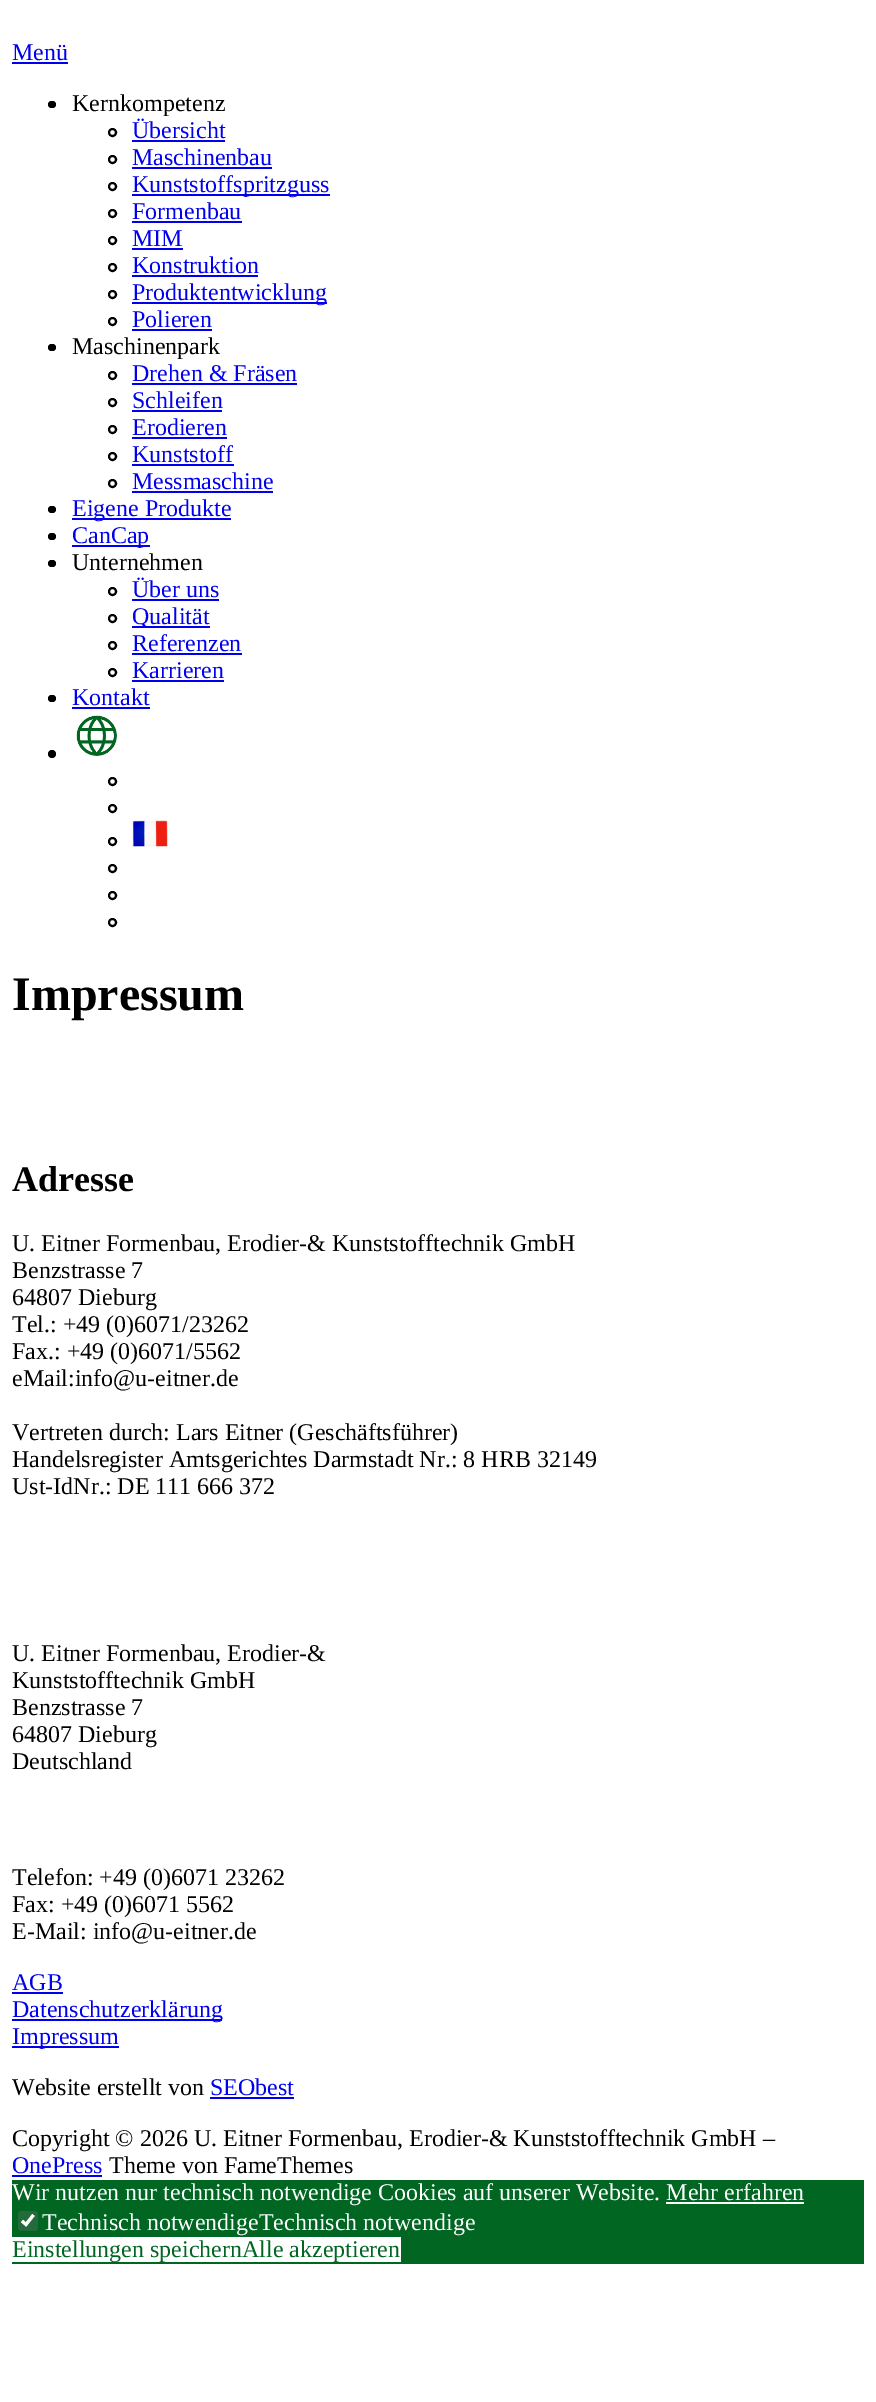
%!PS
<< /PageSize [876 2402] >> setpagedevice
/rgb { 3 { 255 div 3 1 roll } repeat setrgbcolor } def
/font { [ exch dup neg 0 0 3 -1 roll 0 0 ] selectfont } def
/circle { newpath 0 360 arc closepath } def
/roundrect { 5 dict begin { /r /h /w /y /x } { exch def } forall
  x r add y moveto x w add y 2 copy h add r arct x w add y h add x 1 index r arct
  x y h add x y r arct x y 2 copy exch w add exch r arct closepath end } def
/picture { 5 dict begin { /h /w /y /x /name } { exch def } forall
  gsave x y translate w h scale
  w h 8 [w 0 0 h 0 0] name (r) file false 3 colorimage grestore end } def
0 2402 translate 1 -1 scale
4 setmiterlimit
255 255 255 rgb
0 0 876 2402 rectfill
0 0 238 rgb
12 62 56 2 rectfill
0 0 0 rgb
48 101 8 7 3.5 roundrect fill
2 setlinewidth
112.5 132.5 3.5 circle stroke
0 0 238 rgb
132 140 93 2 rectfill
0 0 0 rgb
112.5 159.5 3.5 circle stroke
0 0 238 rgb
132 167 140 2 rectfill
0 0 0 rgb
112.5 186.5 3.5 circle stroke
0 0 238 rgb
132 194 198 2 rectfill
0 0 0 rgb
112.5 213.5 3.5 circle stroke
0 0 238 rgb
132 221 110 2 rectfill
0 0 0 rgb
112.5 240.5 3.5 circle stroke
0 0 238 rgb
132 248 51 2 rectfill
0 0 0 rgb
112.5 267.5 3.5 circle stroke
0 0 238 rgb
132 275 126 2 rectfill
0 0 0 rgb
112.5 294.5 3.5 circle stroke
0 0 238 rgb
132 302 195 2 rectfill
0 0 0 rgb
112.5 321.5 3.5 circle stroke
0 0 238 rgb
132 329 80 2 rectfill
0 0 0 rgb
48 344 8 7 3.5 roundrect fill
112.5 375.5 3.5 circle stroke
0 0 238 rgb
132 383 165 2 rectfill
0 0 0 rgb
112.5 402.5 3.5 circle stroke
0 0 238 rgb
132 410 90 2 rectfill
0 0 0 rgb
112.5 429.5 3.5 circle stroke
0 0 238 rgb
132 437 95 2 rectfill
0 0 0 rgb
112.5 456.5 3.5 circle stroke
0 0 238 rgb
132 464 102 2 rectfill
0 0 0 rgb
112.5 483.5 3.5 circle stroke
0 0 238 rgb
132 491 141 2 rectfill
0 0 0 rgb
48 506 8 7 3.5 roundrect fill
0 0 238 rgb
72 518 159 2 rectfill
0 0 0 rgb
48 533 8 7 3.5 roundrect fill
0 0 238 rgb
72 545 78 2 rectfill
0 0 0 rgb
48 560 8 7 3.5 roundrect fill
112.5 591.5 3.5 circle stroke
0 0 238 rgb
132 599 87 2 rectfill
0 0 0 rgb
112.5 618.5 3.5 circle stroke
0 0 238 rgb
132 626 78 2 rectfill
0 0 0 rgb
112.5 645.5 3.5 circle stroke
0 0 238 rgb
132 653 110 2 rectfill
0 0 0 rgb
112.5 672.5 3.5 circle stroke
0 0 238 rgb
132 680 92 2 rectfill
0 0 0 rgb
48 695 8 7 3.5 roundrect fill
0 0 238 rgb
72 707 78 2 rectfill
0 0 0 rgb
52 754 4 circle fill
(img/1.rgb) 76 715 41 41 picture
112.5 781.5 3.5 circle stroke
112.5 808.5 3.5 circle stroke
112.5 841.5 3.5 circle stroke
(img/2.rgb) 132 820 36 27 picture
112.5 868.5 3.5 circle stroke
112.5 895.5 3.5 circle stroke
112.5 922.5 3.5 circle stroke
[
  [12 1992 51 2 0 0 238]
  [12 2019 210 2 0 0 238]
  [12 2046 107 2 0 0 238]
  [210 2097 84 2 0 0 238]
  [12 2175 90 2 0 0 238]
  [12 2180 852 84 0 102 34]
  [666 2202 138 2 255 255 255]
] { aload pop rgb rectfill } forall
35 107 59 rgb
18 2211 20 20 3 roundrect fill
255 255 255 rgb
3.1 setlinewidth
22 2221 moveto 26 2224.5 lineto 33.5 2215 lineto stroke
12 2237 389 25 rectfill
/LiberationSerif-Regular 24 font
0 0 238 rgb
12 60 moveto (Menü) show
0 0 0 rgb
72 111 moveto (Kernkompetenz) show
0 0 238 rgb
[
  [(Übersicht) 132 138]
  [(Maschinenbau) 132 165]
  [(Kunststoffspritzguss) 132 192]
  [(Formenbau) 132 219]
  [(MIM) 132 246]
  [(Konstruktion) 132 273]
  [(Produktentwicklung) 132 300]
  [(Polieren) 132 327]
] { aload pop moveto show } forall
0 0 0 rgb
72 354 moveto (Maschinenpark) show
0 0 238 rgb
[
  [(Drehen & Fräsen) 132 381]
  [(Schleifen) 132 408]
  [(Erodieren) 132 435]
  [(Kunststoff) 132 462]
  [(Messmaschine) 132 489]
  [(Eigene Produkte) 72 516]
  [(CanCap) 72 543]
] { aload pop moveto show } forall
0 0 0 rgb
72 570 moveto (Unternehmen) show
0 0 238 rgb
[
  [(Über uns) 132 597]
  [(Qualität) 132 624]
  [(Referenzen) 132 651]
  [(Karrieren) 132 678]
  [(Kontakt) 72 705]
] { aload pop moveto show } forall
/LiberationSerif-Bold 48 font
0 0 0 rgb
12 1010 moveto (Impressum) show
/LiberationSerif-Bold 36 font
12 1191 moveto (Adresse) show
/LiberationSerif-Regular 24 font
[
  [(U. Eitner Formenbau, Erodier-& Kunststofftechnik GmbH) 12 1251]
  [(Benzstrasse 7) 12 1278]
  [(64807 Dieburg) 12 1305]
  [(Tel.: +49 \(0\)6071/23262) 12 1332]
  [(Fax.: +49 \(0\)6071/5562) 12 1359]
  [(eMail:info@u-eitner.de) 12 1386]
  [(Vertreten durch: Lars Eitner \(Geschäftsführer\)) 12 1440]
  [(Handelsregister Amtsgerichtes Darmstadt Nr.: 8 HRB 32149) 12 1467]
  [(Ust-IdNr.: DE 111 666 372) 12 1494]
  [(U. Eitner Formenbau, Erodier-&) 12 1661]
  [(Kunststofftechnik GmbH) 12 1688]
  [(Benzstrasse 7) 12 1715]
  [(64807 Dieburg) 12 1742]
  [(Deutschland) 12 1769]
  [(Telefon: +49 \(0\)6071 23262) 12 1885]
  [(Fax: +49 \(0\)6071 5562) 12 1912]
  [(E-Mail: info@u-eitner.de) 12 1939]
] { aload pop moveto show } forall
0 0 238 rgb
[
  [(AGB) 12 1990]
  [(Datenschutzerklärung) 12 2017]
  [(Impressum) 12 2044]
] { aload pop moveto show } forall
0 0 0 rgb
12 2095 moveto (Website erstellt von) show
0 0 238 rgb
210 2095 moveto (SEObest) show
0 0 0 rgb
12 2146 moveto (Copyright © 2026 U. Eitner Formenbau, Erodier-& Kunststofftechnik GmbH –) show
0 0 238 rgb
12 2173 moveto (OnePress) show
0 0 0 rgb
109 2173 moveto (Theme von FameThemes) show
255 255 255 rgb
12 2200 moveto (Wir nutzen nur technisch notwendige Cookies auf unserer Website. Mehr erfahren) show
42 2230 moveto (Technisch notwendigeTechnisch notwendige) show
0 102 34 rgb
12 2257 moveto (Einstellungen speichernAlle akzeptieren) show
showpage
